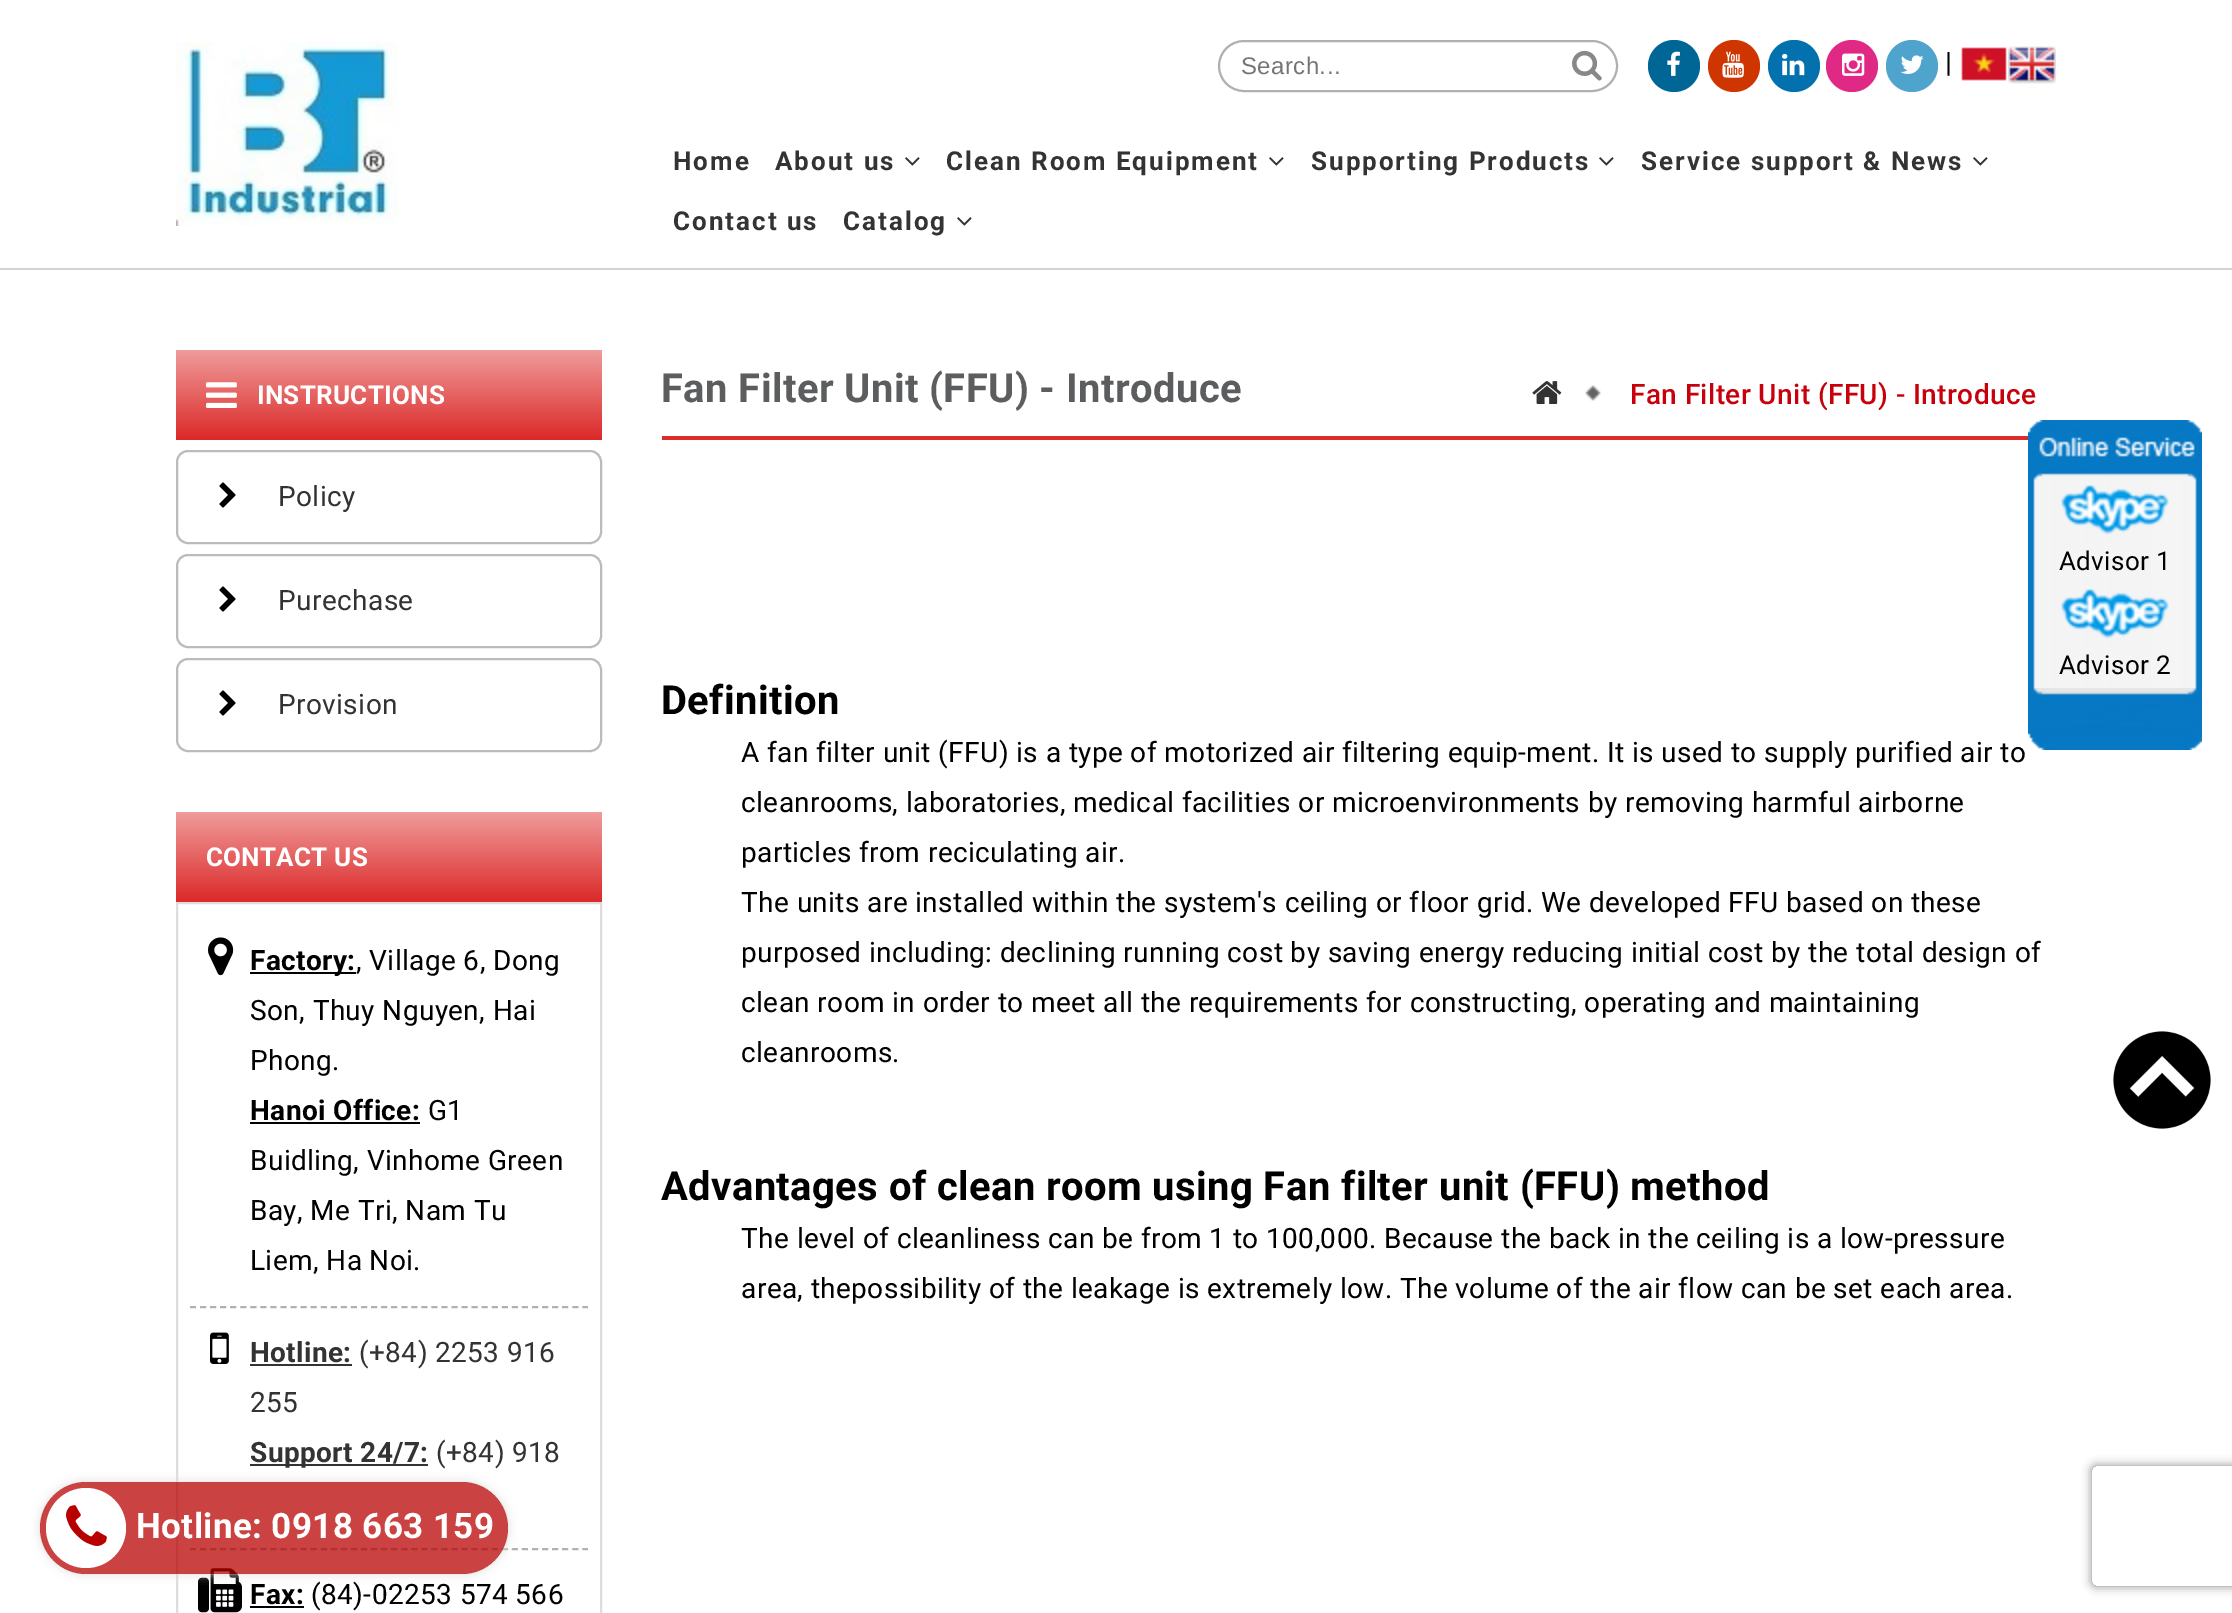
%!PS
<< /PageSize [2232 1613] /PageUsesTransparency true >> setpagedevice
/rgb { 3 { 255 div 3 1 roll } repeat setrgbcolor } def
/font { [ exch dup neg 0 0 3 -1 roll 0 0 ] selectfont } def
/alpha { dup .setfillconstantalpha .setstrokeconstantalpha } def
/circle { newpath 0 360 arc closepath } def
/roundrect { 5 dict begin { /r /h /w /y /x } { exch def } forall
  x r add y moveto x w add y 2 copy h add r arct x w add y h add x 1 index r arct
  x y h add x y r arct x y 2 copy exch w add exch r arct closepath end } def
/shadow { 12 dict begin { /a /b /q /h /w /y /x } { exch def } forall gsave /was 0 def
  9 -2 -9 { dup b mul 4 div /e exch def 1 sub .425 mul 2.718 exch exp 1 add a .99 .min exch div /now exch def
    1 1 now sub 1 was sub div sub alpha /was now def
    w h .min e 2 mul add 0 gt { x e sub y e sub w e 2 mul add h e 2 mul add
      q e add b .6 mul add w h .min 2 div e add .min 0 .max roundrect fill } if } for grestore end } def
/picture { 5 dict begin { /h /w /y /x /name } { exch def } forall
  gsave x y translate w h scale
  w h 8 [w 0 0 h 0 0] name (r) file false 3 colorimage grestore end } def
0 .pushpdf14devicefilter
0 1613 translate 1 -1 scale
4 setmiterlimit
255 255 255 rgb
0 0 2232 1613 rectfill
212 210 208 rgb
0 268 2232 2 rectfill
(img/1.rgb) 176 42 222 184 picture
177 176 176 rgb
2 setlinewidth
1219 41 398 50 25 roundrect stroke
(img/2.rgb) 1572 50 30 31 picture
0 102 149 rgb
1674 66 26 circle fill
(img/3.rgb) 1667 51 13 25 picture
207 53 1 rgb
1734 66 26 circle fill
(img/4.rgb) 1722 51 22 27 picture
2 113 174 rgb
1794 66 26 circle fill
(img/5.rgb) 1782 53 23 23 picture
224 41 133 rgb
1852 66 26 circle fill
(img/6.rgb) 1842 53 23 23 picture
79 164 205 rgb
1912 66 26 circle fill
(img/7.rgb) 1900 55 24 19 picture
(img/8.rgb) 1961 47 46 34 picture
(img/9.rgb) 2008 46 48 38 picture
(img/10.rgb) 905 157 15 9 picture
(img/10.rgb) 1269 157 15 9 picture
(img/10.rgb) 1599 157 15 9 picture
(img/10.rgb) 1973 157 15 9 picture
(img/10.rgb) 957 217 15 9 picture
gsave 176 350 moveto 602 350 lineto 602 440 lineto 176 440 lineto closepath clip newpath
<< /ShadingType 2 /ColorSpace /DeviceRGB /Coords [389 350 389 440] /Extend [true true] /Function << /FunctionType 2 /Domain [0 1] /C0 [0.937 0.612 0.608] /C1 [0.859 0.161 0.157] /N 1 >> >> shfill grestore
(img/11.rgb) 206 382 31 26 picture
187 187 187 rgb
177 451 424 92 11 roundrect stroke
(img/12.rgb) 219 482 17 26 picture
177 555 424 92 11 roundrect stroke
(img/12.rgb) 219 586 17 26 picture
177 659 424 92 11 roundrect stroke
(img/12.rgb) 219 690 17 26 picture
gsave 176 812 moveto 602 812 lineto 602 902 lineto 176 902 lineto closepath clip newpath
<< /ShadingType 2 /ColorSpace /DeviceRGB /Coords [389 812 389 902] /Extend [true true] /Function << /FunctionType 2 /Domain [0 1] /C0 [0.937 0.612 0.608] /C1 [0.859 0.161 0.157] /N 1 >> >> shfill grestore
221 221 221 rgb
177 903 424 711 rectstroke
177 177 177 rgb
[6 4.06] 0 setdash
190 1307 moveto 588 1307 lineto stroke
(img/13.rgb) 208 937 26 39 picture
0 0 0 rgb
250 972 106 2 rectfill
250 1122 170 2 rectfill
177 177 177 rgb
190 1549 moveto 588 1549 lineto stroke
(img/14.rgb) 210 1332 19 32 picture
51 51 51 rgb
250 1364 102 2 rectfill
250 1464 178 2 rectfill
(img/15.rgb) 198 1568 44 45 picture
0 0 0 rgb
250 1606 54 2 rectfill
219 43 43 rgb
662 436 1366 4 rectfill
(img/16.rgb) 1585 385 16 16 picture
(img/17.rgb) 1532 381 30 23 picture
(img/18.rgb) 2028 420 174 60 picture
(img/19.rgb) 2028 480 174 208 picture
(img/20.rgb) 2061 485 108 50 picture
(img/20.rgb) 2061 589 108 50 picture
(img/21.rgb) 2028 688 174 62 picture
(img/22.rgb) 2113 1031 98 98 picture
gsave
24 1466 moveto 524 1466 lineto 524 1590 lineto 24 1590 lineto closepath 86 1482 moveto 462 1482 lineto 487.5 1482 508 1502.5 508 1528 curveto 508 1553.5 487.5 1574 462 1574 curveto 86 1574 lineto 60.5 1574 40 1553.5 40 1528 curveto 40 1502.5 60.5 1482 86 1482 curveto closepath eoclip newpath
221 221 221 rgb
40 1482 468 92 46 5 1 shadow
grestore
0.74 alpha
183 1 0 rgb
40 1482 468 92 46 roundrect fill
1 alpha
255 255 255 rgb
86 1528 40 circle fill
(img/23.rgb) 66 1505 41 41 picture
gsave
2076 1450 moveto 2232 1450 lineto 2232 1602 lineto 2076 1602 lineto closepath 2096 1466 moveto 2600 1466 lineto 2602 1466 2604 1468 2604 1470 curveto 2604 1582 lineto 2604 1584 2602 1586 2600 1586 curveto 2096 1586 lineto 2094 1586 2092 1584 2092 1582 curveto 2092 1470 lineto 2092 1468 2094 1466 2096 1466 curveto closepath eoclip newpath
128 128 128 rgb
2092 1466 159 120 4 5 1 shadow
grestore
/LiberationSans-Regular 24 font
117 117 117 rgb
1241 74 moveto 0.4 0 (Search...) ashow
/Roboto-Regular 28 font
0 0 0 rgb
1945 72 moveto 0.4 0 (|) ashow
/Roboto-Bold 26 font
51 51 51 rgb
673 170 moveto 2 0 (Home) ashow
775 170 moveto 2 0 (About us) ashow
946 170 moveto 2 0 (Clean Room Equipment) ashow
1311 170 moveto 2 0 (Supporting Products) ashow
1641 170 moveto 2 0 (Service support & News) ashow
673 230 moveto 2 0 (Contact us) ashow
843 230 moveto 2 0 (Catalog) ashow
255 255 255 rgb
257 404 moveto 0.25 0 (INSTRUCTIONS) ashow
/Roboto-Regular 28 font
51 51 51 rgb
278 506 moveto 0.4 0 (Policy) ashow
278 610 moveto 0.4 0 (Purechase) ashow
278 714 moveto 0.4 0 (Provision) ashow
/Roboto-Bold 26 font
255 255 255 rgb
206 866 moveto 0.25 0 (CONTACT US) ashow
/Roboto-Bold 28 font
0 0 0 rgb
250 970 moveto 0.4 0 (Factory:) ashow
/Roboto-Regular 28 font
356 970 moveto 0.4 0 (, Village 6, Dong) ashow
250 1020 moveto 0.4 0 (Son, Thuy Nguyen, Hai) ashow
250 1070 moveto 0.4 0 (Phong.) ashow
/Roboto-Bold 28 font
250 1120 moveto 0.4 0 (Hanoi Office:) ashow
/Roboto-Regular 28 font
428 1120 moveto 0.4 0 (G1) ashow
250 1170 moveto 0.4 0 (Buidling, Vinhome Green) ashow
250 1220 moveto 0.4 0 (Bay, Me Tri, Nam Tu) ashow
250 1270 moveto 0.4 0 (Liem, Ha Noi.) ashow
/Roboto-Bold 28 font
51 51 51 rgb
250 1362 moveto 0.4 0 (Hotline:) ashow
/Roboto-Regular 28 font
359 1362 moveto 0.4 0 (\(+84\) 2253 916) ashow
250 1412 moveto 0.4 0 (255) ashow
/Roboto-Bold 28 font
250 1462 moveto 0.4 0 (Support 24/7:) ashow
/Roboto-Regular 28 font
436 1462 moveto 0.4 0 (\(+84\) 918) ashow
/Roboto-Bold 28 font
0 0 0 rgb
250 1604 moveto 0.4 0 (Fax:) ashow
/Roboto-Regular 28 font
311 1604 moveto 0.4 0 (\(84\)-02253 574 566) ashow
/Roboto-Bold 40 font
92 93 94 rgb
661 402 moveto 0.4 0 (Fan Filter Unit \(FFU\) - Introduce) ashow
/Roboto-Medium 28 font
199 0 11 rgb
1630 404 moveto 0.4 0 (Fan Filter Unit \(FFU\) - Introduce) ashow
/Roboto-Bold 40 font
0 0 0 rgb
661 714 moveto 0.4 0 (Definition) ashow
/Roboto-Regular 28 font
741 762 moveto 0.4 0 (A fan filter unit \(FFU\) is a type of motorized air filtering equip-ment. It is used to supply purified air to) ashow
741 812 moveto 0.4 0 (cleanrooms, laboratories, medical facilities or microenvironments by removing harmful airborne) ashow
741 862 moveto 0.4 0 (particles from reciculating air.) ashow
741 912 moveto 0.4 0 (The units are installed within the system's ceiling or floor grid. We developed FFU based on these) ashow
741 962 moveto 0.4 0 (purposed including: declining running cost by saving energy reducing initial cost by the total design of) ashow
741 1012 moveto 0.4 0 (clean room in order to meet all the requirements for constructing, operating and maintaining) ashow
741 1062 moveto 0.4 0 (cleanrooms.) ashow
/Roboto-Bold 40 font
661 1200 moveto 0.4 0 (Advantages of clean room using Fan filter unit \(FFU\) method) ashow
/Roboto-Regular 28 font
741 1248 moveto 0.4 0 (The level of cleanliness can be from 1 to 100,000. Because the back in the ceiling is a low-pressure) ashow
741 1298 moveto 0.4 0 (area, thepossibility of the leakage is extremely low. The volume of the air flow can be set each area.) ashow
/Roboto-Regular 26 font
2059 570 moveto 0.4 0 (Advisor 1) ashow
2059 674 moveto 0.4 0 (Advisor 2) ashow
/Roboto-Bold 35 font
255 255 255 rgb
136 1538 moveto 0.4 0 (Hotline: 0918 663 159) ashow
.poppdf14devicefilter showpage
